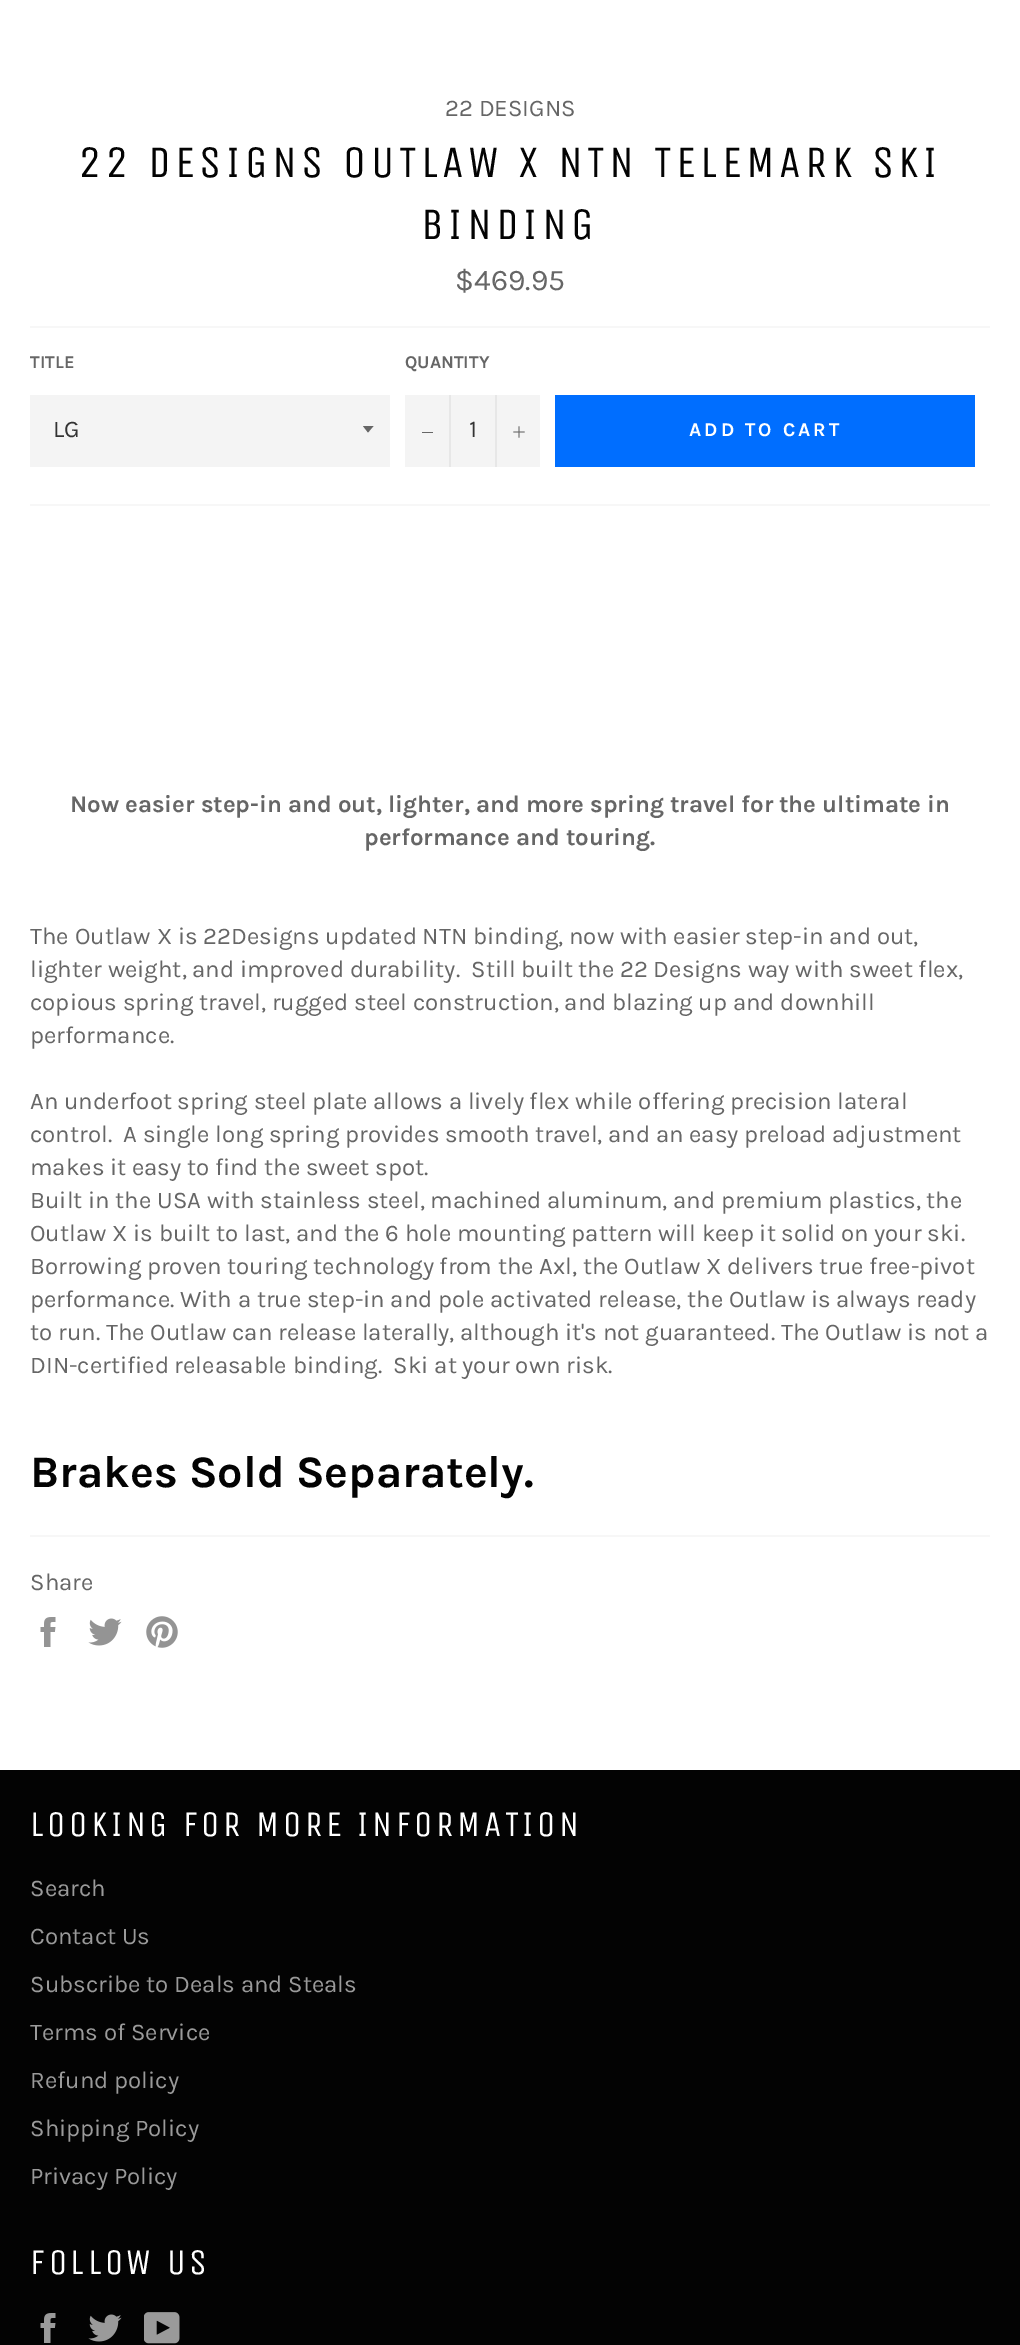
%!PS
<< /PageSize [1020 2345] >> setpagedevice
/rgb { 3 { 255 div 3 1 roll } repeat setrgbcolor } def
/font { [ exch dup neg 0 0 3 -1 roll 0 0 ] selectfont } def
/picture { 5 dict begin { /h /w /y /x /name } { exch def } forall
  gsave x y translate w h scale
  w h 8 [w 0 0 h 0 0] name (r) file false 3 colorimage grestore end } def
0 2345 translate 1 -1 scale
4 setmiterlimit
255 255 255 rgb
0 0 1020 2345 rectfill
247 247 247 rgb
30 326 960 2 rectfill
244 244 244 rgb
30 395 360 72 rectfill
102 102 102 rgb
363 426 moveto 368 432.5 lineto 373.5 426 lineto closepath fill
[
  [405 395 135 72 244 244 244]
  [449 395 2 72 231 231 231]
  [422 432 11 1 102 102 102]
  [495 395 2 72 231 231 231]
] { aload pop rgb rectfill } forall
(img/1.rgb) 513 426 12 12 picture
[
  [555 395 420 72 0 110 255]
  [30 504 960 2 247 247 247]
  [30 1535 960 2 247 247 247]
] { aload pop rgb rectfill } forall
(img/2.rgb) 40 1617 16 30 picture
(img/3.rgb) 88 1618 34 28 picture
(img/4.rgb) 146 1616 32 32 picture
3 3 3 rgb
0 1770 1020 575 rectfill
(img/5.rgb) 40 2313 16 30 picture
(img/6.rgb) 88 2314 34 28 picture
(img/7.rgb) 144 2312 36 32 picture
/Karla-Regular 24 font
102 102 102 rgb
445 116 moveto (22 DESIGNS) show
/UnicaOne-Regular 45 font
3 3 3 rgb
78 177 moveto 4.5 0 (22 DESIGNS OUTLAW X NTN TELEMARK SKI) ashow
421 239 moveto 4.5 0 (BINDING) ashow
/Karla-Regular 30 font
102 102 102 rgb
455 290 moveto ($469.95) show
/Karla-Bold 18 font
30 368 moveto (TITLE) show
/Karla-Regular 24 font
51 51 51 rgb
53 437 moveto (LG) show
/Karla-Bold 18 font
102 102 102 rgb
405 368 moveto (QUANTITY) show
/Karla-Regular 24 font
51 51 51 rgb
469 437 moveto (1) show
/Karla-Bold 19.5 font
255 255 255 rgb
689 436 moveto 3 0 (ADD TO CART) ashow
/Karla-Bold 24 font
102 102 102 rgb
70 812 moveto (Now easier step-in and out, lighter, and more spring travel for the ultimate in) show
364 845 moveto (performance and touring.) show
/Karla-Regular 24 font
[
  [(The Outlaw X is 22Designs updated NTN binding, now with easier step-in and out,) 30 944]
  [(lighter weight, and improved durability.  Still built the 22 Designs way with sweet flex,) 30 977]
  [(copious spring travel, rugged steel construction, and blazing up and downhill) 30 1010]
  [(performance.) 30 1043]
  [(An underfoot spring steel plate allows a lively flex while offering precision lateral) 30 1109]
  [(control.  A single long spring provides smooth travel, and an easy preload adjustment) 30 1142]
  [(makes it easy to find the sweet spot.) 30 1175]
  [(Built in the USA with stainless steel, machined aluminum, and premium plastics, the) 30 1208]
  [(Outlaw X is built to last, and the 6 hole mounting pattern will keep it solid on your ski.) 30 1241]
  [(Borrowing proven touring technology from the Axl, the Outlaw X delivers true free-pivot) 30 1274]
  [(performance. With a true step-in and pole activated release, the Outlaw is always ready) 30 1307]
  [(to run. The Outlaw can release laterally, although it's not guaranteed. The Outlaw is not a) 30 1340]
  [(DIN-certified releasable binding.  Ski at your own risk.) 30 1373]
] { aload pop moveto show } forall
/Karla-Bold 45 font
3 3 3 rgb
30 1487 moveto (Brakes Sold Separately.) show
/Karla-Regular 24 font
102 102 102 rgb
30 1590 moveto (Share) show
/UnicaOne-Regular 36 font
255 255 255 rgb
30 1836 moveto 3.6 0 (LOOKING FOR MORE INFORMATION) ashow
/Karla-Regular 24 font
154 154 154 rgb
[
  [(Search) 30 1896]
  [(Contact Us) 30 1944]
  [(Subscribe to Deals and Steals) 30 1992]
  [(Terms of Service) 30 2040]
  [(Refund policy) 30 2088]
  [(Shipping Policy) 30 2136]
  [(Privacy Policy) 30 2184]
] { aload pop moveto show } forall
/UnicaOne-Regular 36 font
255 255 255 rgb
30 2274 moveto 3.6 0 (FOLLOW US) ashow
showpage
